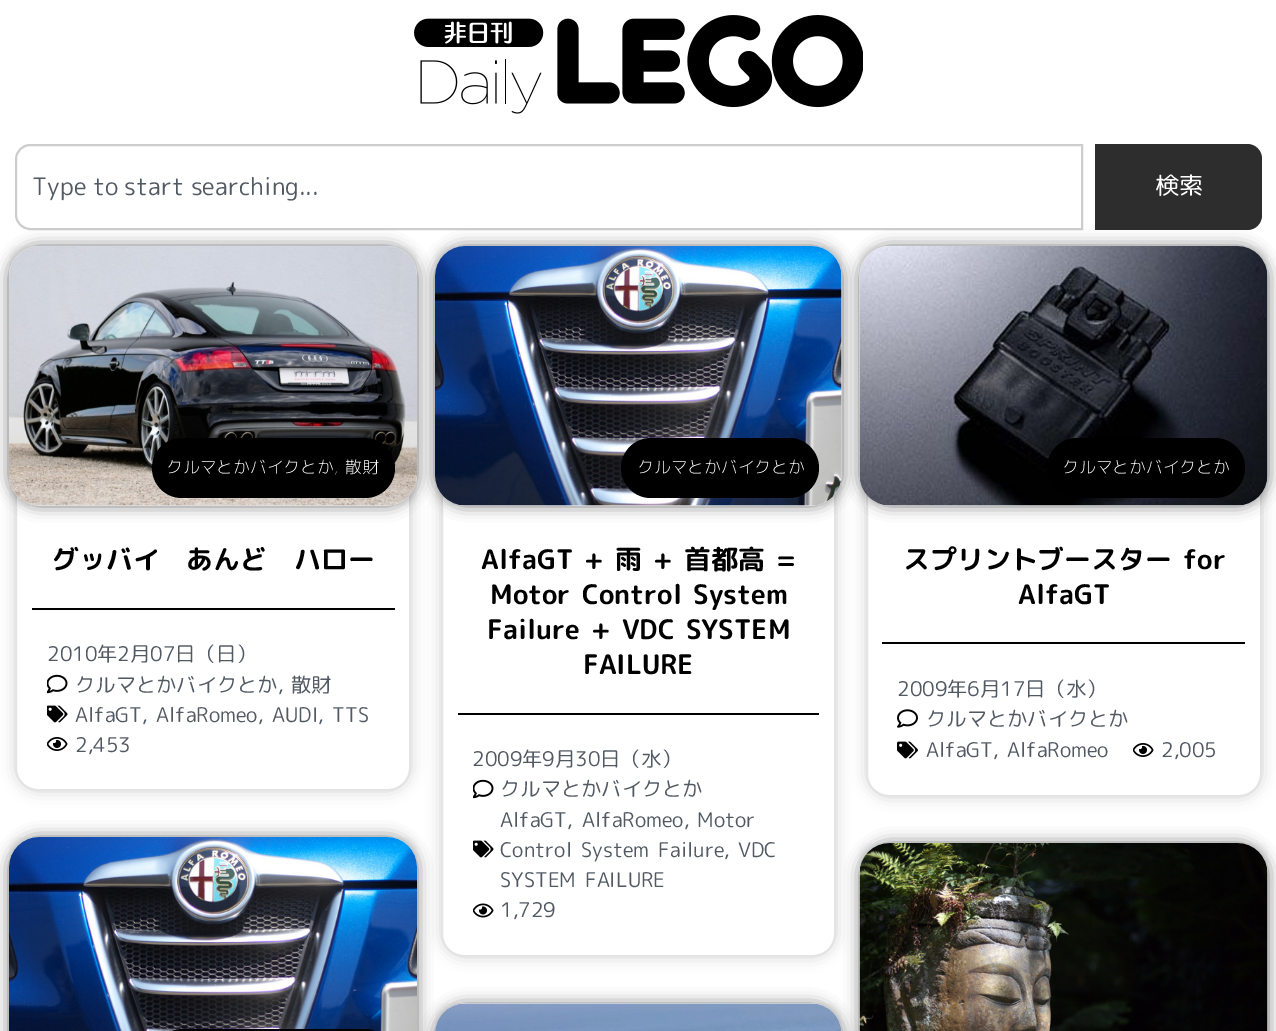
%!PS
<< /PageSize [1276 1031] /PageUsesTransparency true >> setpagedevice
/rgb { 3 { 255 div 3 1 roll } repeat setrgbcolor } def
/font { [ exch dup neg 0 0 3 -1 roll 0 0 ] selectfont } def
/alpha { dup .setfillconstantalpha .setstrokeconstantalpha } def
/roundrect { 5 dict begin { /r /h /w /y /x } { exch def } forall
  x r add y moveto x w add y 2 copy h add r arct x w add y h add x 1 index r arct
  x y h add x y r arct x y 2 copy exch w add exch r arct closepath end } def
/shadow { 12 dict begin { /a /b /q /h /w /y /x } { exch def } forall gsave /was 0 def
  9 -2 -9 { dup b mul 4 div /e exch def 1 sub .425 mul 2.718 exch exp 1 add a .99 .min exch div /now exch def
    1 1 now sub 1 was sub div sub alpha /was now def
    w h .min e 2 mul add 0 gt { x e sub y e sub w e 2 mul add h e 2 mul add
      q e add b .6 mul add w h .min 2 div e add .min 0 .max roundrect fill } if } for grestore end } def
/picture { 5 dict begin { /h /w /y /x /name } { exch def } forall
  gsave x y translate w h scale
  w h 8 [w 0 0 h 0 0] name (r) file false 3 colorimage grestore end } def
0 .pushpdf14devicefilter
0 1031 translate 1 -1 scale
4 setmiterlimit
255 255 255 rgb
0 0 1276 1031 rectfill
(img/1.rgb) 414 15 449 99 picture
205 205 205 rgb
2 setlinewidth
30 145 moveto 1082 145 lineto 1082 229 lineto 30 229 lineto 22.5 229 16 222.5 16 215 curveto 16 159 lineto 16 151.5 22.5 145 30 145 curveto closepath stroke
45 45 45 rgb
1095 144 moveto 1247 144 lineto 1255.5 144 1262 150.5 1262 159 curveto 1262 215 lineto 1262 223.5 1255.5 230 1247 230 curveto 1095 230 lineto closepath fill
gsave
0 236 moveto 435 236 lineto 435 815 lineto 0 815 lineto closepath 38 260 moveto 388 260 lineto 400.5 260 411 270.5 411 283 curveto 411 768 lineto 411 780.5 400.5 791 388 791 curveto 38 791 lineto 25.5 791 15 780.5 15 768 curveto 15 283 lineto 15 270.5 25.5 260 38 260 curveto closepath eoclip newpath
0 0 0 rgb
15 260 396 531 23 7.5 0.17 shadow
grestore
228 228 228 rgb
16 261 394 529 22 roundrect stroke
0 0 0 rgb
9 246 408 260 30 7.5 0.5 shadow
(img/2.rgb) 9 246 408 260 picture
152 438 243 60 30 roundrect fill
32 608 363 2 rectfill
(img/3.rgb) 47 674 21 20 picture
(img/4.rgb) 47 705 21 18 picture
(img/5.rgb) 47 737 21 14 picture
gsave
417 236 moveto 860 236 lineto 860 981 lineto 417 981 lineto closepath 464 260 moveto 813 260 lineto 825.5 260 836 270.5 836 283 curveto 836 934 lineto 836 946.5 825.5 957 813 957 curveto 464 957 lineto 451.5 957 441 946.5 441 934 curveto 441 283 lineto 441 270.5 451.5 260 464 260 curveto closepath eoclip newpath
441 260 395 697 23 7.5 0.17 shadow
grestore
228 228 228 rgb
442 261 393 695 22 roundrect stroke
0 0 0 rgb
435 246 407 260 30 7.5 0.5 shadow
(img/6.rgb) 435 246 407 260 picture
621 438 198 60 30 roundrect fill
458 713 361 2 rectfill
(img/3.rgb) 473 779 21 20 picture
(img/4.rgb) 473 840 21 18 picture
(img/7.rgb) 473 903 21 15 picture
gsave
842 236 moveto 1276 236 lineto 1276 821 lineto 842 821 lineto closepath 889 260 moveto 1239 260 lineto 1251.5 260 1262 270.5 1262 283 curveto 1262 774 lineto 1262 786.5 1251.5 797 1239 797 curveto 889 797 lineto 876.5 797 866 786.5 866 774 curveto 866 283 lineto 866 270.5 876.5 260 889 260 curveto closepath eoclip newpath
866 260 396 537 23 7.5 0.17 shadow
grestore
228 228 228 rgb
867 261 394 535 22 roundrect stroke
0 0 0 rgb
860 246 408 260 30 7.5 0.5 shadow
(img/8.rgb) 859 246 409 260 picture
1047 438 198 60 30 roundrect fill
882 642 363 2 rectfill
(img/9.rgb) 897 709 21 19 picture
(img/10.rgb) 897 741 21 18 picture
(img/5.rgb) 1133 743 21 14 picture
15 851 396 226 23 7.5 0.17 shadow
9 837 408 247 30 7.5 0.5 shadow
(img/11.rgb) 9 837 408 194 picture
152 1029 243 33 31 roundrect fill
441 1017 395 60 23 7.5 0.17 shadow
435 1004 407 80 30 7.5 0.5 shadow
(img/12.rgb) 435 1003 407 28 picture
866 857 396 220 23 7.5 0.17 shadow
860 843 408 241 30 7.5 0.5 shadow
(img/13.rgb) 859 843 409 188 picture
/RoundedMplus1c-Regular 24 font
81 89 98 rgb
32 195 moveto (Type to start searching...) show
255 255 255 rgb
1155 194 moveto (検索) show
/RoundedMplus1c-Light 16.75 font
166 473 moveto (クルマとかバイクとか) show
/RoundedMplus1c-Thin 16.75 font
334 473 moveto (,) show
/RoundedMplus1c-Light 16.75 font
345 473 moveto (散財) show
/RoundedMplus1cBold-Bold 26.9 font
0 0 0 rgb
52 569 moveto (グッバイ　あんど　ハロー) show
/RoundedMplus1c-Regular 20.25 font
81 89 98 rgb
[
  [(2010年2月07日（日）) 47 661]
  [(クルマとかバイクとか,) 75 692]
  [(散財) 291 692]
  [(AlfaGT,) 75 722]
  [(AlfaRomeo,) 156 722]
  [(AUDI,) 272 722]
  [(TTS) 332 722]
  [(2,453) 75 752]
] { aload pop moveto show } forall
/RoundedMplus1c-Light 16.75 font
255 255 255 rgb
637 473 moveto (クルマとかバイクとか) show
/RoundedMplus1cBold-Bold 26.9 font
0 0 0 rgb
481 569 moveto 3.5 0 32 (AlfaGT + 雨 + 首都高 =) widthshow
490 604 moveto 3.5 0 32 (Motor Control System) widthshow
487 639 moveto 3.5 0 32 (Failure + VDC SYSTEM) widthshow
583 674 moveto (FAILURE) show
/RoundedMplus1c-Regular 20.25 font
81 89 98 rgb
[
  [(2009年9月30日（水）) 472 766]
  [(クルマとかバイクとか) 500 796]
  [(AlfaGT,) 500 827]
  [(AlfaRomeo,) 582 827]
  [(Motor) 697 827]
] { aload pop moveto show } forall
500 857 moveto 3.5 0 32 (Control System Failure) widthshow
724 857 moveto (,) show
738 857 moveto (VDC) show
500 887 moveto 3.5 0 32 (SYSTEM FAILURE) widthshow
500 917 moveto (1,729) show
/RoundedMplus1c-Light 16.75 font
255 255 255 rgb
1062 473 moveto (クルマとかバイクとか) show
/RoundedMplus1cBold-Bold 26.9 font
0 0 0 rgb
903 569 moveto 3.5 0 32 (スプリントブースター for) widthshow
1018 604 moveto (AlfaGT) show
/RoundedMplus1c-Regular 20.25 font
81 89 98 rgb
[
  [(2009年6月17日（水）) 897 696]
  [(クルマとかバイクとか) 926 726]
  [(AlfaGT,) 926 757]
  [(AlfaRomeo) 1007 757]
  [(2,005) 1161 757]
] { aload pop moveto show } forall
.poppdf14devicefilter showpage
